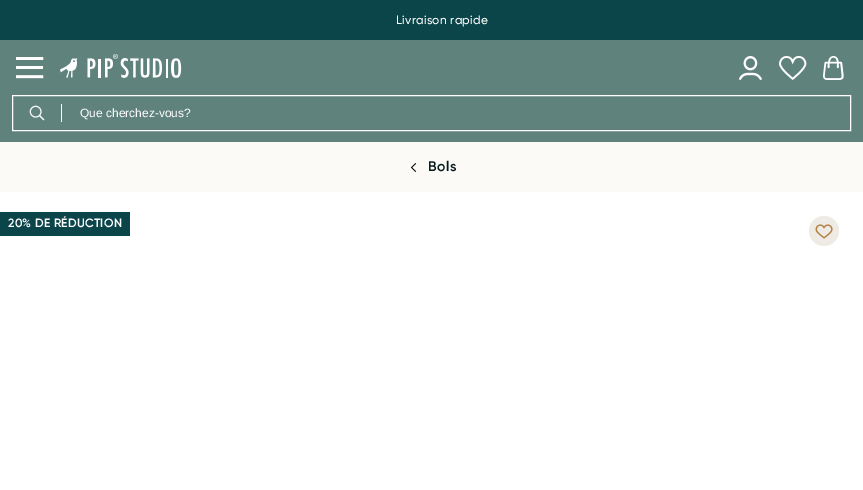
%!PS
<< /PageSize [863 490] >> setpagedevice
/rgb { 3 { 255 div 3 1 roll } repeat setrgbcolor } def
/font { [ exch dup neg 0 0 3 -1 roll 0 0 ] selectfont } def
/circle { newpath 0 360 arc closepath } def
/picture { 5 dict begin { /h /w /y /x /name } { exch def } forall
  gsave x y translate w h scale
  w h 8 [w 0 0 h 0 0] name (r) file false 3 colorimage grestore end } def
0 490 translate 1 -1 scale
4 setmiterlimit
252 250 247 rgb
0 0 863 490 rectfill
11 69 74 rgb
0 0 863 40 rectfill
95 130 125 rgb
0 40 863 102 rectfill
(img/1.rgb) 16 57 28 22 picture
(img/2.rgb) 60 54 122 24 picture
(img/3.rgb) 739 56 23 24 picture
(img/4.rgb) 779 56 28 24 picture
(img/5.rgb) 823 56 21 24 picture
255 255 255 rgb
12.5 95.5 838 35 rectstroke
(img/6.rgb) 29 105 16 16 picture
61 104 1 18 rectfill
(img/7.rgb) 410 163 7 9 picture
0 192 863 298 rectfill
238 234 228 rgb
824 231 15 circle fill
(img/8.rgb) 815 224 18 15 picture
11 69 74 rgb
0 212 130 24 rectfill
/Gilroy-Medium 12 font
255 255 255 rgb
396 24 moveto 0.3 0 (Livraison rapide) ashow
/LiberationSans-Regular 12 font
80 117 moveto (Que cherchez-vous?) show
/Gilroy-SemiBold 14 font
2 27 29 rgb
428 171 moveto 0.5 0 (Bols) ashow
/Gilroy-SemiBold 12 font
255 255 255 rgb
8 227 moveto 0.25 0 (20% DE RÉDUCTION) ashow
showpage
